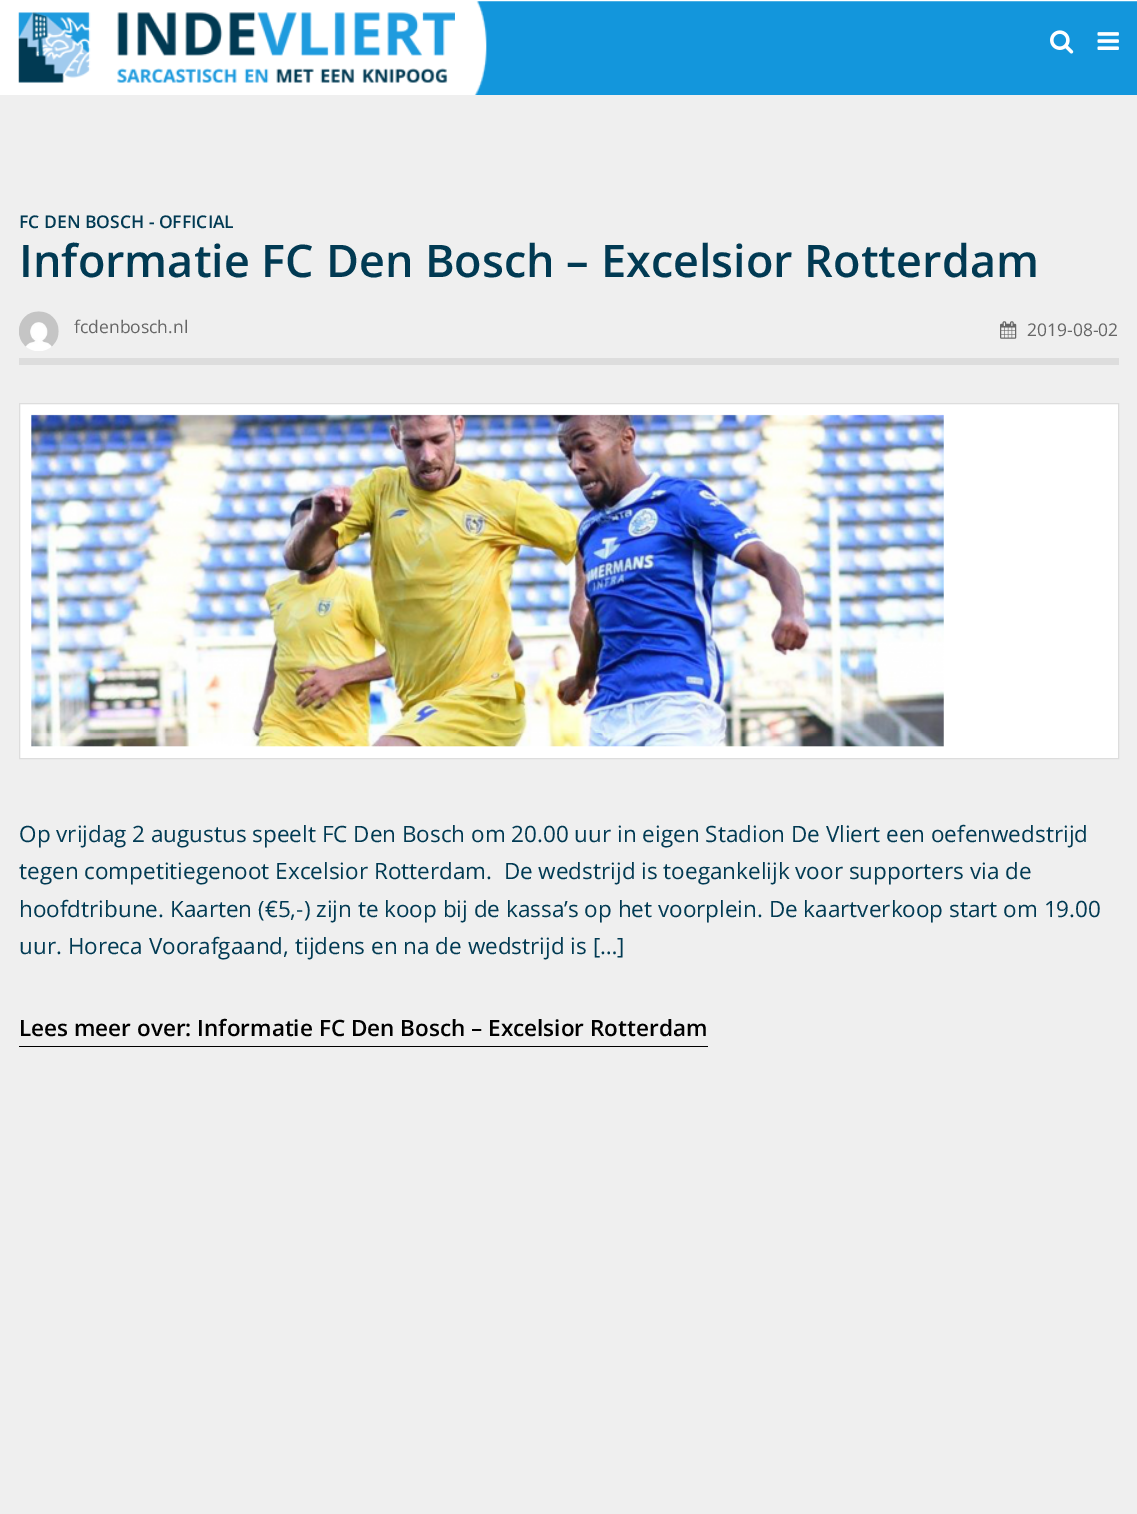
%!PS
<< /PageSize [1137 1514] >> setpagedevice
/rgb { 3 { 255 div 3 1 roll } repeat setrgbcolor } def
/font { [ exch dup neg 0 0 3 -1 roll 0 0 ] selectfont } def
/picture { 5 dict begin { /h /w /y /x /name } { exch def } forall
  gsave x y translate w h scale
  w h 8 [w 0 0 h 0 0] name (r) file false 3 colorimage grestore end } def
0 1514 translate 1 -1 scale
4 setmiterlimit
239 239 239 rgb
0 0 1137 1514 rectfill
255 255 255 rgb
0 0 1137 95 rectfill
(img/1.rgb) 18 12 437 71 picture
(img/2.rgb) 474 1 663 94 picture
(img/3.rgb) 1050 30 24 24 picture
(img/4.rgb) 1097 32 22 18 picture
221 221 221 rgb
19 358 1100 7 rectfill
(img/5.rgb) 19 311 40 40 picture
(img/6.rgb) 1000 321 17 18 picture
255 255 255 rgb
19.5 403.5 moveto 1118.5 403.5 lineto 1118.5 758.5 lineto 19.5 758.5 lineto closepath gsave fill grestore
221 221 221 rgb
stroke
(img/7.rgb) 31 414 913 333 picture
0 0 0 rgb
19 1046 689 1 rectfill
/OpenSans-SemiBold 17.5 font
1 58 83 rgb
19 228 moveto (FC DEN BOSCH - OFFICIAL) show
/OpenSans-SemiBold 45 font
19 277 moveto (Informatie FC Den Bosch – Excelsior Rotterdam) show
/OpenSans-Regular 17.5 font
102 102 102 rgb
74 333 moveto (fcdenbosch.nl) show
1027 336 moveto (2019-08-02) show
/OpenSans-Regular 22.5 font
1 58 83 rgb
[
  [(Op vrijdag 2 augustus speelt FC Den Bosch om 20.00 uur in eigen Stadion De Vliert een oefenwedstrijd) 19 842]
  [(tegen competitiegenoot Excelsior Rotterdam.  De wedstrijd is toegankelijk voor supporters via de) 19 879]
  [(hoofdtribune. Kaarten \(€5,-\) zijn te koop bij de kassa’s op het voorplein. De kaartverkoop start om 19.00) 19 917]
  [(uur. Horeca Voorafgaand, tijdens en na de wedstrijd is […]) 19 954]
] { aload pop moveto show } forall
/OpenSans-SemiBold 22.5 font
0 0 0 rgb
19 1036 moveto (Lees meer over: Informatie FC Den Bosch – Excelsior Rotterdam) show
showpage
